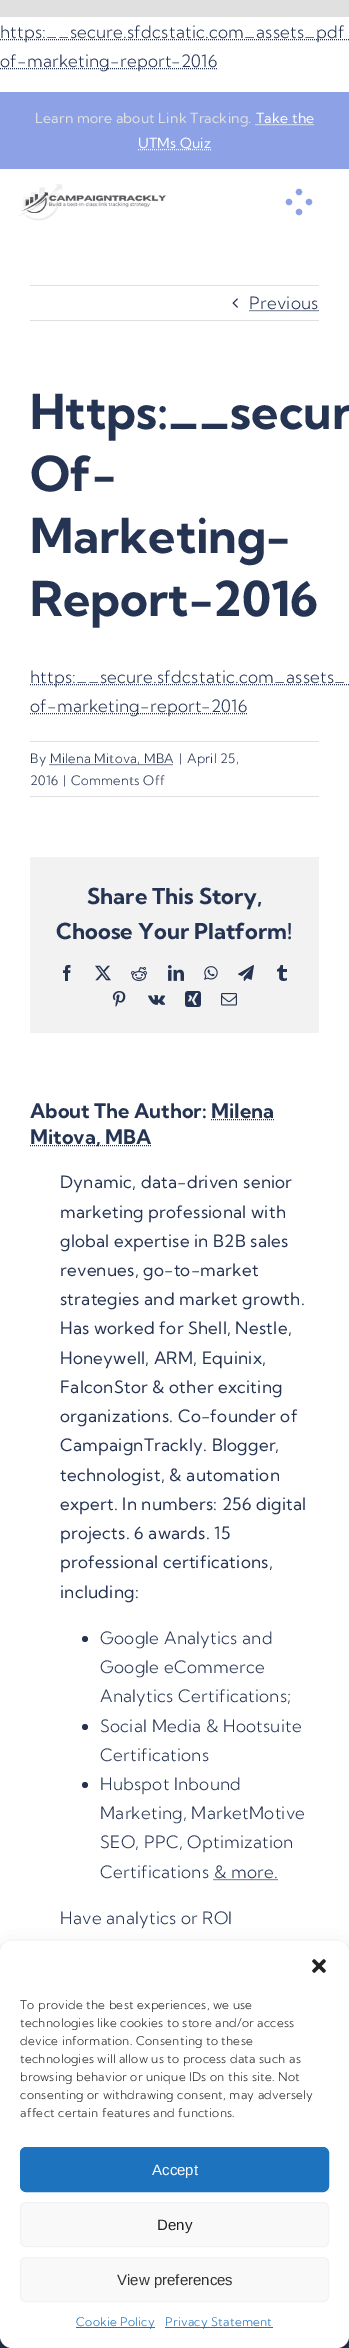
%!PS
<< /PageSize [349 2348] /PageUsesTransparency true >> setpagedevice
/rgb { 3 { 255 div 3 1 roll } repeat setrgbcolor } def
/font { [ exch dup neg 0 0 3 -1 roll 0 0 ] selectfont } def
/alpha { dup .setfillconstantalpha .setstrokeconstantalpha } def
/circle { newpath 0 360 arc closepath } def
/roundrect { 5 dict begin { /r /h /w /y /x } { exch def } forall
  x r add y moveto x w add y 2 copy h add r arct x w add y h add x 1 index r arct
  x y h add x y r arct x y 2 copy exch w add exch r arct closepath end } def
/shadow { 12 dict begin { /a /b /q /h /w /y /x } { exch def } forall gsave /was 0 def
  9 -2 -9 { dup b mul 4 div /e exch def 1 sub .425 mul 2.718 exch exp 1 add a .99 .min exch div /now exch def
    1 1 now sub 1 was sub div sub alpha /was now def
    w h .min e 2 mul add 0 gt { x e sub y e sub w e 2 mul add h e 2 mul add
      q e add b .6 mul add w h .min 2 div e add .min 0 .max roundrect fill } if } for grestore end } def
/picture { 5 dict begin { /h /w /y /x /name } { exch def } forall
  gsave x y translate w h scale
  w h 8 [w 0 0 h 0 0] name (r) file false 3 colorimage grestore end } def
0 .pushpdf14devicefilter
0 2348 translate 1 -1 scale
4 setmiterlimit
224 224 224 rgb
0 0 349 2348 rectfill
255 255 255 rgb
0 17 349 1936 rectfill
38 52 83 rgb
[1 1] 0 setdash
0 39.5 moveto 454.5 39.5 lineto stroke
0 68.5 moveto 217.5 68.5 lineto stroke
141 162 230 rgb
0 92 349 77 rectfill
255 255 255 rgb
255.5 124.5 moveto 314 124.5 lineto stroke
138 149.5 moveto 211 149.5 lineto stroke
(img/1.rgb) 18 184 148 37 picture
(img/2.rgb) 285 188 28 28 picture
224 224 224 rgb
30 285 289 1 rectfill
30 320 289 1 rectfill
(img/3.rgb) 232 298 6 10 picture
38 52 83 rgb
249.5 310.5 moveto 319 310.5 lineto stroke
30 684.5 moveto 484.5 684.5 lineto stroke
30 713.5 moveto 247.5 713.5 lineto stroke
224 224 224 rgb
30 741 289 1 rectfill
30 796 289 1 rectfill
38 52 83 rgb
49.5 764.5 moveto 173.5 764.5 lineto stroke
242 242 242 rgb
30 857 289 176 rectfill
(img/4.rgb) 63 965 8 16 picture
(img/5.rgb) 95 965 16 16 picture
(img/6.rgb) 131 967 16 14 picture
(img/7.rgb) 168 965 16 16 picture
(img/8.rgb) 204 966 14 14 picture
(img/9.rgb) 238 965 16 16 picture
(img/10.rgb) 277 965 10 16 picture
(img/11.rgb) 112 991 14 16 picture
(img/12.rgb) 148 995 18 10 picture
(img/13.rgb) 185 991 16 16 picture
(img/14.rgb) 221 993 16 13 picture
38 52 83 rgb
211 1119.5 moveto 274 1119.5 lineto stroke
30 1145.5 moveto 151.5 1145.5 lineto stroke
85 1639 3 circle fill
85 1727 3 circle fill
85 1785 3 circle fill
213.5 1879.5 moveto 278 1879.5 lineto stroke
0 2336 349 12 rectfill
(img/15.rgb) 341 2336 8 12 picture
0 0 0 rgb
0 1947 349 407 12 3 0.23 shadow
0 1951 349 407 12 10 0.19 shadow
255 255 255 rgb
0 1941 349 407 12 roundrect fill
(img/16.rgb) 312 1959 14 14 picture
30 115 190 rgb
20.5 2147.5 308 44 5.5 roundrect gsave fill grestore
[] 0 setdash
stroke
249 249 249 rgb
20.5 2202.5 308 44 5.5 roundrect gsave fill grestore
242 242 242 rgb
stroke
249 249 249 rgb
20.5 2257.5 308 44 5.5 roundrect gsave fill grestore
242 242 242 rgb
stroke
30 115 190 rgb
76 2327 79 1 rectfill
165 2327 108 1 rectfill
/KumbhSans-Light 17 font
38 52 83 rgb
0 38 moveto 0.25 0 (https:__secure.sfdcstatic.com_assets_pdf) ashow
0 67 moveto 0.25 0 (of-marketing-report-2016) ashow
/KumbhSans-Regular 14 font
224 224 224 rgb
35 123 moveto 0.2 0 (Learn more about Link Tracking.) ashow
255 255 255 rgb
256 123 moveto 0.2 0 (Take the) ashow
138 148 moveto 0.2 0 (UTMs Quiz) ashow
/KumbhSans-Light 17 font
38 52 83 rgb
249 309 moveto 0.25 0 (Previous) ashow
/KumbhSans-Bold 48 font
[
  [(Https:__secur) 30 429]
  [(Of-) 30 491]
  [(Marketing-) 30 553]
  [(Report-2016) 30 616]
] { aload pop moveto show } forall
/KumbhSans-Light 17 font
30 683 moveto 0.25 0 (https:__secure.sfdcstatic.com_assets_) ashow
30 712 moveto 0.25 0 (of-marketing-report-2016) ashow
/KumbhSans-Light 13 font
30 763 moveto 0.25 0 (By) ashow
50 763 moveto 0.25 0 (Milena Mitova, MBA) ashow
179 763 moveto 0.25 0 (|) ashow
187 763 moveto 0.25 0 (April 25,) ashow
30 785 moveto 0.25 0 (2016) ashow
63 785 moveto 0.25 0 (|) ashow
71 785 moveto 0.25 0 (Comments Off) ashow
/KumbhSans-Bold 22 font
87 904 moveto (Share This Story,) show
56 939 moveto (Choose Your Platform!) show
/KumbhSans-Bold 20 font
30 1118 moveto (About The Author: Milena) show
30 1144 moveto (Mitova, MBA) show
/KumbhSans-Regular 17 font
60 1188 moveto 0.25 0 (Dynamic, data-driven senior) ashow
60 1218 moveto 0.25 0 (marketing professional with) ashow
60 1247 moveto 0.25 0 (global expertise in B2B sales) ashow
60 1276 moveto 0.25 0 (revenues, go-to-market) ashow
60 1305 moveto 0.25 0 (strategies and market growth.) ashow
60 1334 moveto 0.25 0 (Has worked for Shell, Nestle,) ashow
60 1364 moveto 0.25 0 (Honeywell, ARM, Equinix,) ashow
60 1393 moveto 0.25 0 (FalconStor & other exciting) ashow
60 1422 moveto 0.25 0 (organizations. Co-founder of) ashow
60 1451 moveto 0.25 0 (CampaignTrackly. Blogger,) ashow
60 1481 moveto 0.25 0 (technologist, & automation) ashow
60 1510 moveto 0.25 0 (expert. In numbers: 256 digital) ashow
60 1539 moveto 0.25 0 (projects. 6 awards. 15) ashow
60 1568 moveto 0.25 0 (professional certifications,) ashow
60 1598 moveto 0.25 0 (including:) ashow
/KumbhSans-Light 17 font
100 1644 moveto 0.25 0 (Google Analytics and) ashow
100 1673 moveto 0.25 0 (Google eCommerce) ashow
100 1702 moveto 0.25 0 (Analytics Certifications;) ashow
100 1732 moveto 0.25 0 (Social Media & Hootsuite) ashow
100 1761 moveto 0.25 0 (Certifications) ashow
100 1790 moveto 0.25 0 (Hubspot Inbound) ashow
100 1819 moveto 0.25 0 (Marketing, MarketMotive) ashow
100 1848 moveto 0.25 0 (SEO, PPC, Optimization) ashow
100 1878 moveto 0.25 0 (Certifications & more.) ashow
60 1924 moveto 0.25 0 (Have analytics or ROI) ashow
/KumbhSans-Light 12 font
34 34 34 rgb
20 2009 moveto 0.25 0 (To provide the best experiences, we use) ashow
20 2027 moveto 0.25 0 (technologies like cookies to store and/or access) ashow
20 2045 moveto 0.25 0 (device information. Consenting to these) ashow
20 2063 moveto 0.25 0 (technologies will allow us to process data such as) ashow
20 2081 moveto 0.25 0 (browsing behavior or unique IDs on this site. Not) ashow
20 2099 moveto 0.25 0 (consenting or withdrawing consent, may adversely) ashow
20 2117 moveto 0.25 0 (affect certain features and functions.) ashow
/LiberationSans-Regular 15 font
255 255 255 rgb
152 2175 moveto (Accept) show
34 34 34 rgb
157 2230 moveto (Deny) show
51 51 51 rgb
117 2285 moveto (View preferences) show
/KumbhSans-Light 12 font
30 115 190 rgb
76 2326 moveto 0.25 0 (Cookie Policy) ashow
165 2326 moveto 0.25 0 (Privacy Statement) ashow
.poppdf14devicefilter showpage
